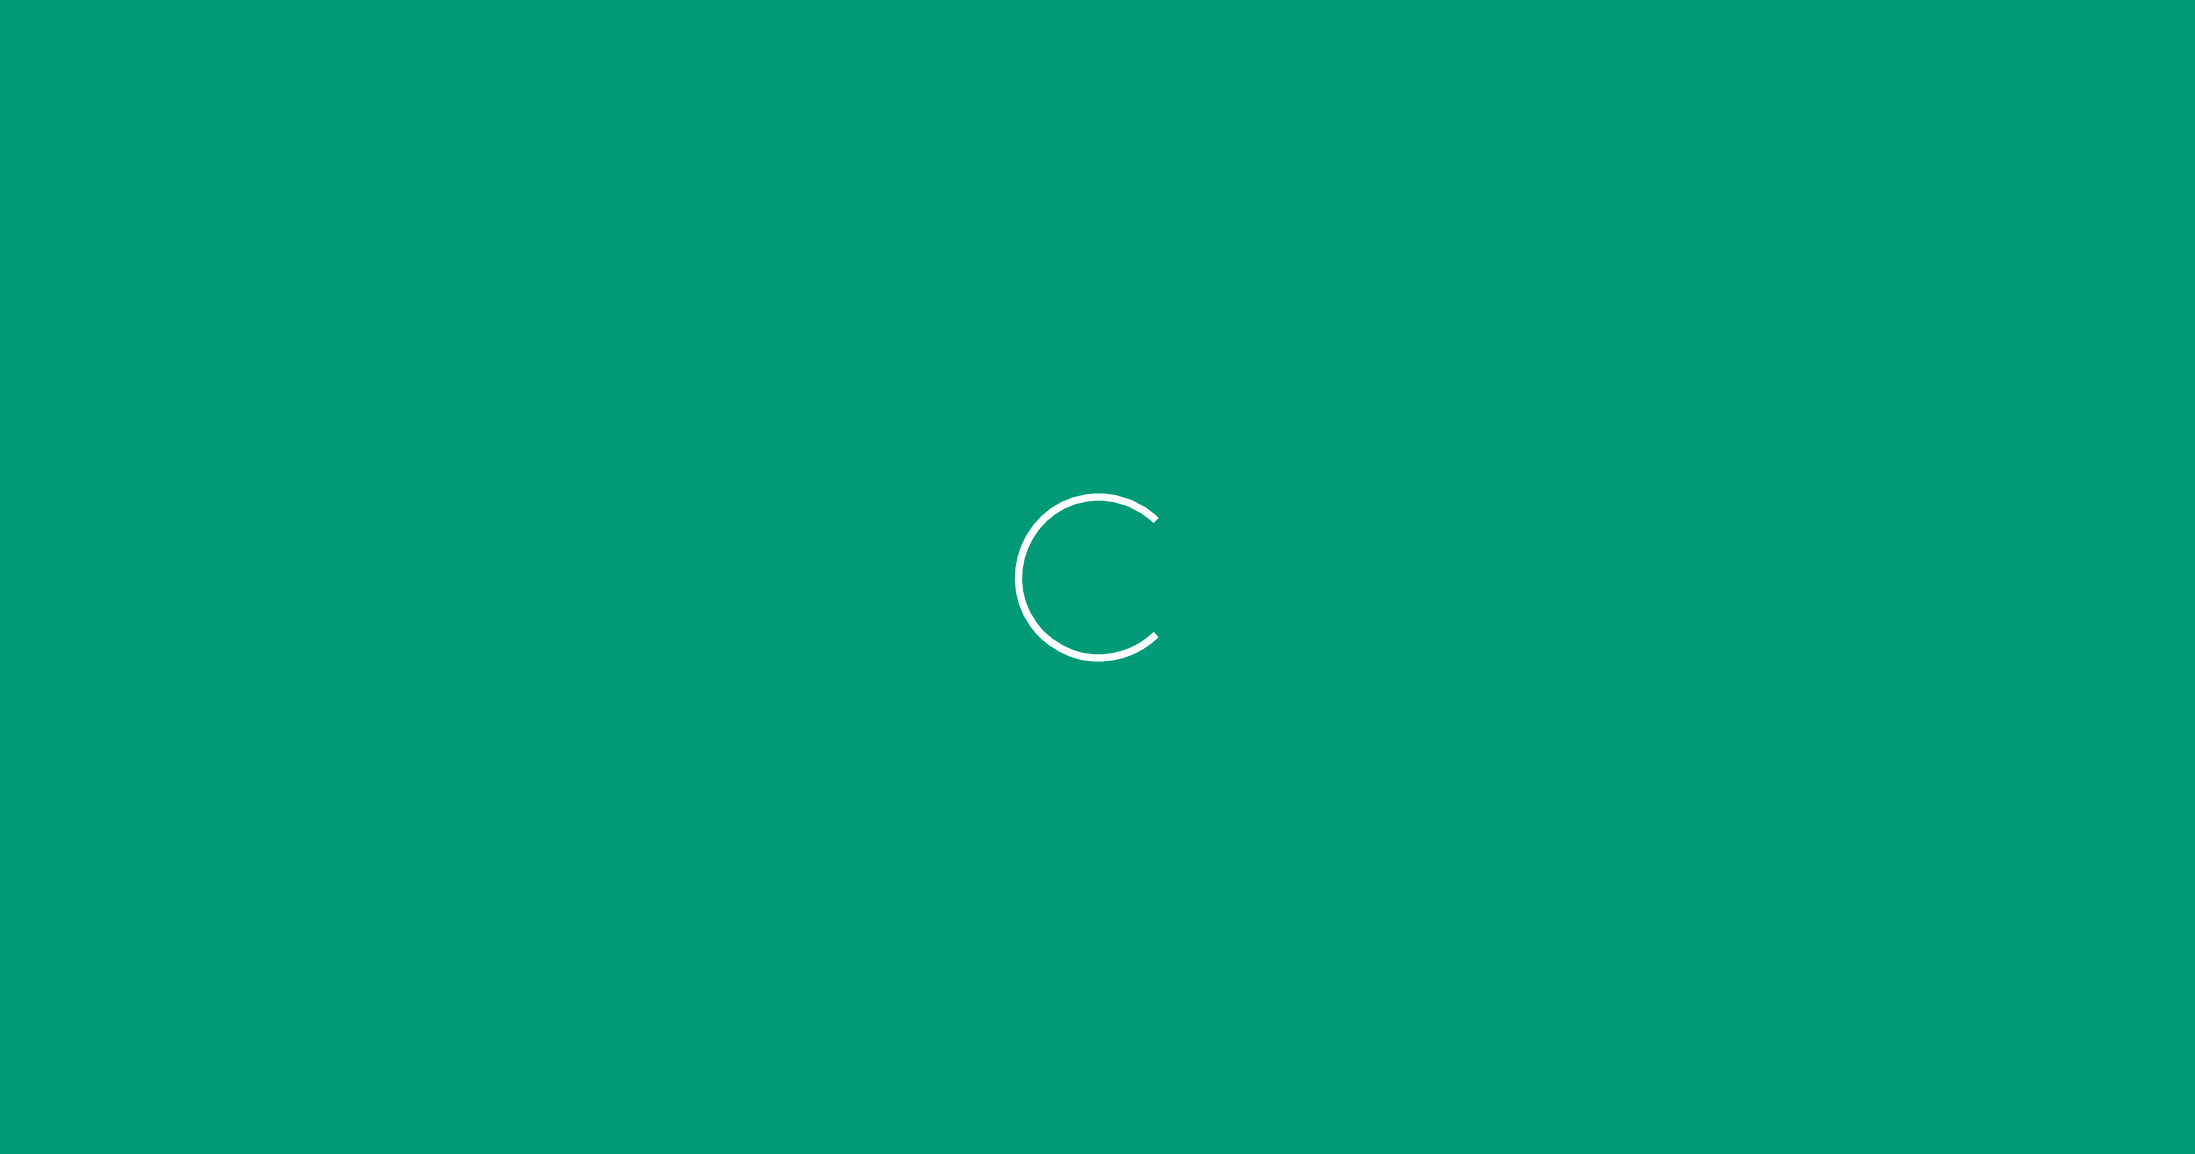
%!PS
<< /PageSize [2195 1154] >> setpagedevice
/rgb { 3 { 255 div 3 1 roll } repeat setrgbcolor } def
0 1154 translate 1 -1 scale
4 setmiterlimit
0 154 119 rgb
0 0 2195 1154 rectfill
255 255 255 rgb
7 setlinewidth
1156 634.5 moveto 1137 653.5 1109.5 661.5 1083 656.5 curveto 1067.5 653.5 1053.5 645.5 1042 634.5 curveto 991.5 584 1027.5 497 1099 497 curveto 1120 497 1141 505.5 1156 520.5 curveto stroke
showpage
